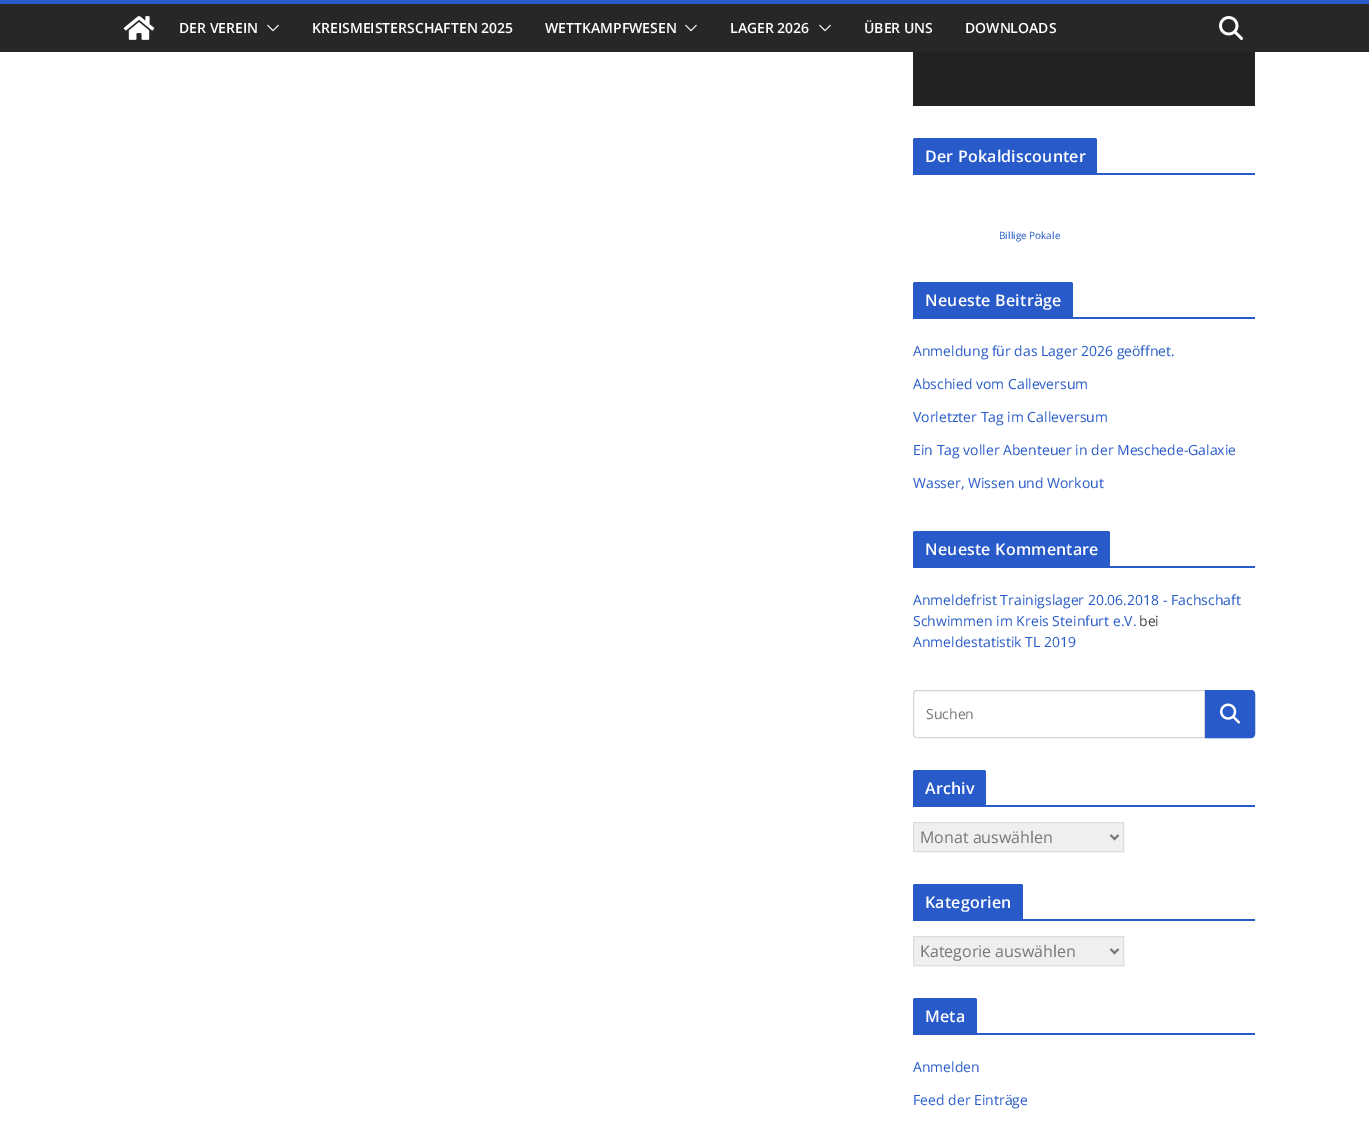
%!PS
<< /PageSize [1369 1121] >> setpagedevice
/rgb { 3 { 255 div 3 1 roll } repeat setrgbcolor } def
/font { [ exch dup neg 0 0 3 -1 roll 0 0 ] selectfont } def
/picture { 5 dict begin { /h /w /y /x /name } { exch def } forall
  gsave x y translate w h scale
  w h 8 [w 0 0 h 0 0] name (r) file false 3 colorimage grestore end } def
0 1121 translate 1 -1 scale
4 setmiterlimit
255 255 255 rgb
0 0 1369 1121 rectfill
39 39 42 rgb
0 4 1369 48 rectfill
40 91 201 rgb
0 0 1369 4 rectfill
(img/1.rgb) 123 16 32 24 picture
(img/2.rgb) 267 24 12 8 picture
(img/2.rgb) 685 24 12 8 picture
(img/2.rgb) 819 24 12 8 picture
(img/3.rgb) 1219 16 24 24 picture
34 34 34 rgb
913 52 342 54 rectfill
40 91 201 rgb
913 173 342 2 rectfill
915 138 moveto 1095 138 lineto 1096 138 1097 139 1097 140 curveto 1097 173 lineto 913 173 lineto 913 140 lineto 913 139 914 138 915 138 curveto closepath fill
913 317 342 2 rectfill
915 282 moveto 1071 282 lineto 1072 282 1073 283 1073 284 curveto 1073 317 lineto 913 317 lineto 913 284 lineto 913 283 914 282 915 282 curveto closepath fill
913 566 342 2 rectfill
915 531 moveto 1108 531 lineto 1109 531 1110 532 1110 533 curveto 1110 566 lineto 913 566 lineto 913 533 lineto 913 532 914 531 915 531 curveto closepath fill
212 212 216 rgb
917 690.5 moveto 1204.5 690.5 lineto 1204.5 737.5 lineto 917 737.5 lineto 915 737.5 913.5 736 913.5 734 curveto 913.5 694 lineto 913.5 692 915 690.5 917 690.5 curveto closepath stroke
40 91 201 rgb
1205.5 690.5 moveto 1251 690.5 lineto 1253 690.5 1254.5 692 1254.5 694 curveto 1254.5 734 lineto 1254.5 736 1253 737.5 1251 737.5 curveto 1205.5 737.5 lineto closepath gsave fill grestore
stroke
(img/4.rgb) 1220 703 20 21 picture
913 805 342 2 rectfill
915 770 moveto 984 770 lineto 985 770 986 771 986 772 curveto 986 805 lineto 913 805 lineto 913 772 lineto 913 771 914 770 915 770 curveto closepath fill
239 239 239 rgb
913.5 822.5 moveto 1123.5 822.5 lineto 1123.5 851.5 lineto 913.5 851.5 lineto closepath gsave fill grestore
221 221 221 rgb
stroke
119 119 119 rgb
2 setlinewidth
1110.5 835 moveto 1114.5 839 lineto 1118.5 835 lineto stroke
40 91 201 rgb
913 919 342 2 rectfill
915 884 moveto 1021 884 lineto 1022 884 1023 885 1023 886 curveto 1023 919 lineto 913 919 lineto 913 886 lineto 913 885 914 884 915 884 curveto closepath fill
239 239 239 rgb
913.5 936.5 moveto 1123.5 936.5 lineto 1123.5 965.5 lineto 913.5 965.5 lineto closepath gsave fill grestore
221 221 221 rgb
1 setlinewidth
stroke
119 119 119 rgb
2 setlinewidth
1110.5 949 moveto 1114.5 953 lineto 1118.5 949 lineto stroke
40 91 201 rgb
913 1033 342 2 rectfill
915 998 moveto 975 998 lineto 976 998 977 999 977 1000 curveto 977 1033 lineto 913 1033 lineto 913 1000 lineto 913 999 914 998 915 998 curveto closepath fill
/OpenSans-SemiBold 14 font
255 255 255 rgb
[
  [(DER VEREIN) 179 33]
  [(KREISMEISTERSCHAFTEN 2025) 312 33]
  [(WETTKAMPFWESEN) 545 33]
  [(LAGER 2026) 730 33]
  [(ÜBER UNS) 864 33]
  [(DOWNLOADS) 965 33]
] { aload pop moveto show } forall
/OpenSans-SemiBold 16 font
925 162 moveto 0.2 0 (Der Pokaldiscounter) ashow
/OpenSans-Regular 10 font
40 91 201 rgb
999 239 moveto (Billige Pokale) show
/OpenSans-SemiBold 16 font
255 255 255 rgb
925 306 moveto 0.2 0 (Neueste Beiträge) ashow
/OpenSans-Regular 14 font
40 91 201 rgb
[
  [(Anmeldung für das Lager 2026 geöffnet.) 913 356]
  [(Abschied vom Calleversum) 913 389]
  [(Vorletzter Tag im Calleversum) 913 422]
  [(Ein Tag voller Abenteuer in der Meschede-Galaxie) 913 455]
  [(Wasser, Wissen und Workout) 913 488]
] { aload pop moveto show } forall
/OpenSans-SemiBold 16 font
255 255 255 rgb
925 555 moveto 0.2 0 (Neueste Kommentare) ashow
/OpenSans-Regular 14 font
40 91 201 rgb
913 605 moveto (Anmeldefrist Trainigslager 20.06.2018 - Fachschaft) show
913 626 moveto (Schwimmen im Kreis Steinfurt e.V.) show
63 63 70 rgb
1139 626 moveto (bei) show
40 91 201 rgb
913 647 moveto (Anmeldestatistik TL 2019) show
119 119 119 rgb
926 719 moveto (Suchen) show
/OpenSans-SemiBold 16 font
255 255 255 rgb
925 794 moveto 0.2 0 (Archiv) ashow
/OpenSans-Regular 16 font
119 119 119 rgb
920 843 moveto (Monat auswählen) show
/OpenSans-SemiBold 16 font
255 255 255 rgb
925 908 moveto 0.2 0 (Kategorien) ashow
/OpenSans-Regular 16 font
119 119 119 rgb
920 957 moveto (Kategorie auswählen) show
/OpenSans-SemiBold 16 font
255 255 255 rgb
925 1022 moveto 0.2 0 (Meta) ashow
/OpenSans-Regular 14 font
40 91 201 rgb
913 1072 moveto (Anmelden) show
913 1105 moveto (Feed der Einträge) show
showpage
